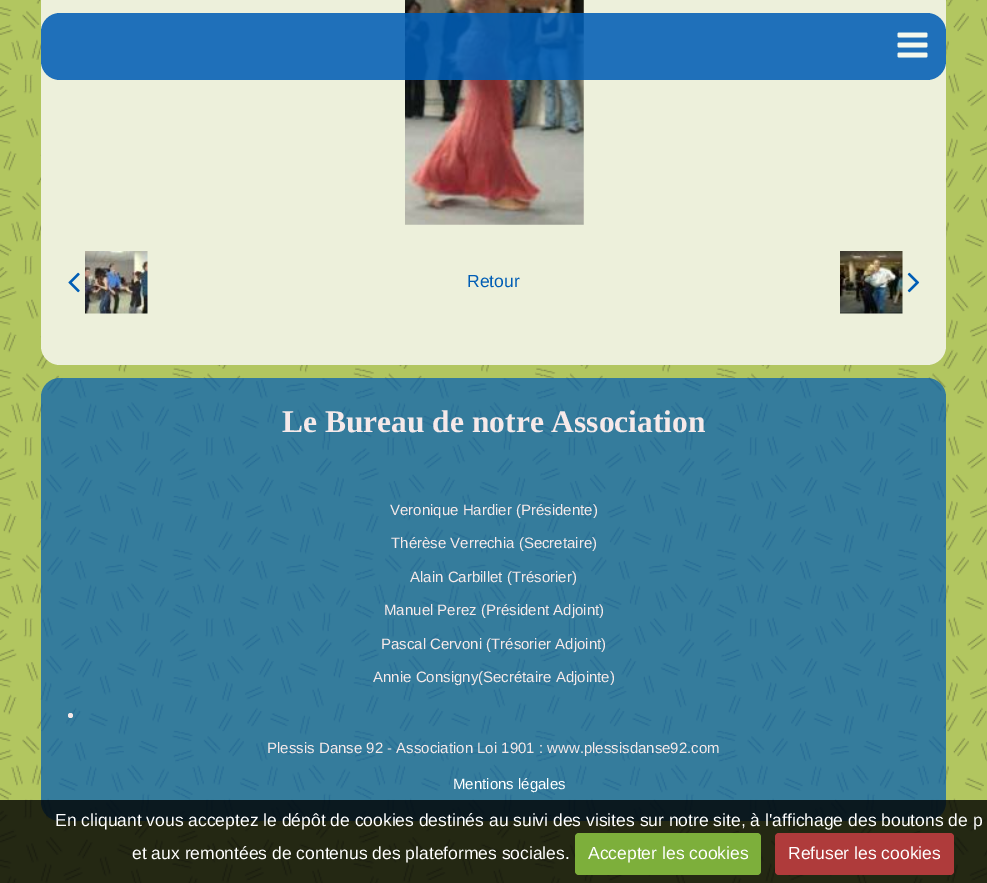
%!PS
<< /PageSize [987 883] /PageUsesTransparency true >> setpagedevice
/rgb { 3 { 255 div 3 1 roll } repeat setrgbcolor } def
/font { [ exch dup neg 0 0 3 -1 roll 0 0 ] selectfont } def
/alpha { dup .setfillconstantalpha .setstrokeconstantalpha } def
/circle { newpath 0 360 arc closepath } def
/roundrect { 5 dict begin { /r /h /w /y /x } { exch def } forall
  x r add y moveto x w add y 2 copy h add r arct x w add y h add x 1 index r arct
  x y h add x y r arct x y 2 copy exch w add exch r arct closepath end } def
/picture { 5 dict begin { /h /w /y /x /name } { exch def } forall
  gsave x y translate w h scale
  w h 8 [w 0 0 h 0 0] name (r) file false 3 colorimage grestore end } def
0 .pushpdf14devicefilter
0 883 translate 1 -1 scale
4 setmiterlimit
178 198 96 rgb
0 0 987 883 rectfill
(img/1.rgb) 0 0 987 883 picture
237 240 219 rgb
41 -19 905 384 19 roundrect fill
(img/3.rgb) 405 0 179 225 picture
0.87 alpha
0 93 181 rgb
41 13 905 67 19 roundrect fill
1 alpha
(img/2.rgb) 897 32 31 26 picture
(img/4.rgb) 68 272 12 21 picture
(img/5.rgb) 85 251 63 63 picture
(img/6.rgb) 840 251 63 63 picture
(img/7.rgb) 907 272 13 21 picture
0.7 alpha
41 378 905 443 19 roundrect fill
1 alpha
246 233 233 rgb
70.5 715.5 2.5 circle fill
0.8 alpha
0 0 0 rgb
0 800 987 83 rectfill
1 alpha
125 175 59 rgb
575 833 186 42 4 roundrect fill
175 59 59 rgb
775 833 179 42 4 roundrect fill
/LiberationSans-Regular 17.5 font
0 93 181 rgb
467 287 moveto (Retour) show
/LiberationSerif-Bold 31.5 font
246 233 233 rgb
282 432 moveto (Le Bureau de notre Association) show
/LiberationSans-Regular 15 font
[
  [(Veronique Hardier \(Présidente\)) 390 515]
  [(Thérèse Verrechia \(Secretaire\)) 391 548]
  [(Alain Carbillet \(Trésorier\)) 410 582]
  [(Manuel Perez \(Président Adjoint\)) 384 615]
  [(Pascal Cervoni \(Trésorier Adjoint\)) 381 649]
  [(Annie Consigny\(Secrétaire Adjointe\)) 373 682]
  [(Plessis Danse 92 - Association Loi 1901 : www.plessisdanse92.com) 267 753]
] { aload pop moveto show } forall
255 255 255 rgb
453 789 moveto (Mentions légales) show
/LiberationSans-Regular 17.5 font
[
  [(En cliquant vous acceptez le dépôt de cookies destinés au suivi des visites sur notre site, à l'affichage des boutons de p) 55 826]
  [(et aux remontées de contenus des plateformes sociales.) 132 859]
  [(Accepter les cookies) 588 859]
  [(Refuser les cookies) 788 859]
] { aload pop moveto show } forall
.poppdf14devicefilter showpage
